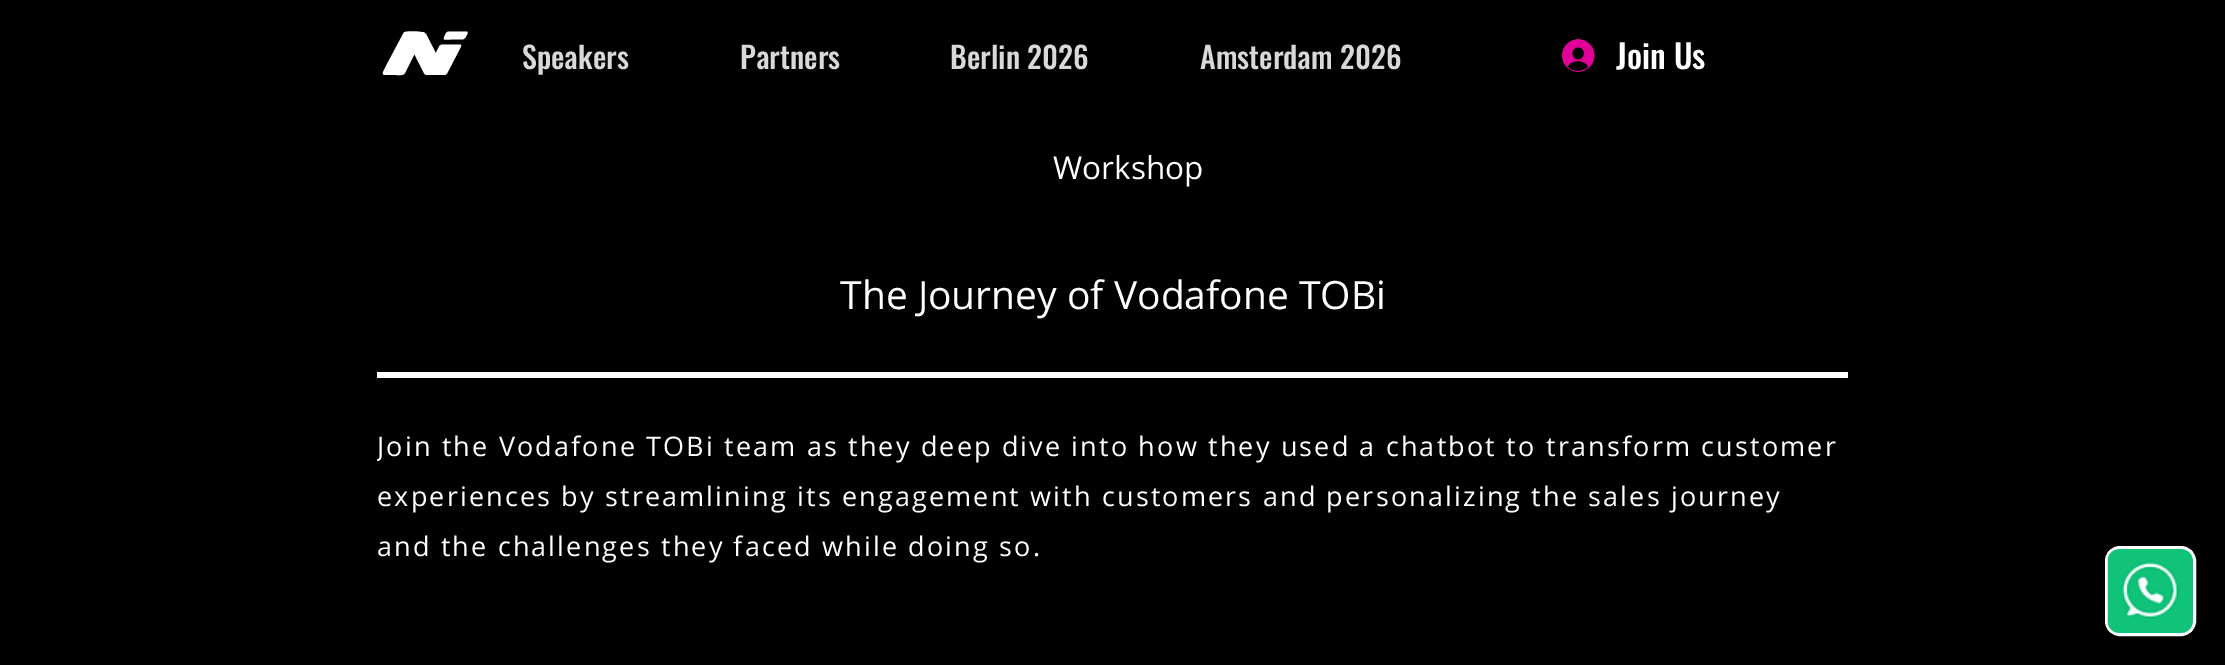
%!PS
<< /PageSize [2225 665] >> setpagedevice
/rgb { 3 { 255 div 3 1 roll } repeat setrgbcolor } def
/font { [ exch dup neg 0 0 3 -1 roll 0 0 ] selectfont } def
/roundrect { 5 dict begin { /r /h /w /y /x } { exch def } forall
  x r add y moveto x w add y 2 copy h add r arct x w add y h add x 1 index r arct
  x y h add x y r arct x y 2 copy exch w add exch r arct closepath end } def
/picture { 5 dict begin { /h /w /y /x /name } { exch def } forall
  gsave x y translate w h scale
  w h 8 [w 0 0 h 0 0] name (r) file false 3 colorimage grestore end } def
0 665 translate 1 -1 scale
4 setmiterlimit
0 0 0 rgb
0 0 2225 665 rectfill
255 255 255 rgb
405 73 moveto 425 33 lineto 424 33 lineto 423 31 406 31 405 32 curveto 403 34 lineto 386 66 lineto 383 73 380 75 387 75 curveto 396 75 lineto 399 75 403 76 405 73 curveto closepath fill
424 73 moveto 404 34 lineto 403 33 404 32 405 32 curveto 422 32 lineto 424 32 425 33 426 34 curveto 446 73 lineto 446 74 446 75 444 75 curveto 427 75 lineto 426 75 424 74 424 73 curveto closepath fill
459.5 44.5 moveto 461 44.5 461.5 45.5 461 46.5 curveto 447.5 72.5 lineto 447 74 445.5 75 444 75 curveto 427 75 lineto 426 75 425.5 74 426 72.5 curveto 439 46.5 lineto 439.5 45.5 441.5 44.5 442.5 44.5 curveto closepath 466 31.5 moveto 469 31.5 467 34.5 466.5 35.5 curveto 464.5 39.5 463.5 39.5 459.5 39.5 curveto 451 39.5 lineto 444.5 39.5 442 41 445 35 curveto 446 33 447 31.5 449 31.5 curveto closepath fill
(img/1.rgb) 1562 39 33 33 picture
377 372 1471 6 rectfill
3 setlinewidth
2106.5 547.5 88 87 13.5 roundrect stroke
(img/2.rgb) 2107 549 86 84 picture
/Oswald-Medium 30 font
217 217 217 rgb
[
  [(Speakers) 522 69]
  [(Partners) 740 69]
  [(Berlin 2026) 950 69]
  [(Amsterdam 2026) 1200 69]
] { aload pop moveto show } forall
/Oswald-Medium 33 font
255 255 255 rgb
1616 69 moveto (Join Us) show
/OpenSans-Regular 31.5 font
1053 179 moveto (Workshop) show
/OpenSans-Regular 39 font
840 309 moveto (The Journey of Vodafone TOBi) show
gsave
377 102 1471 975 rectclip
/OpenSans-Regular 27 font
377 456 moveto 2.15 0 (Join the Vodafone TOBi team as they deep dive into how they used a chatbot to) ashow
grestore
/OpenSans-Regular 27 font
1546 456 moveto 2.15 0 (transform customer) ashow
377 506 moveto 2.15 0 (experiences by streamlining its engagement with customers and personalizing the sales journey) ashow
377 556 moveto 2.15 0 (and the challenges they faced while doing so.) ashow
showpage
